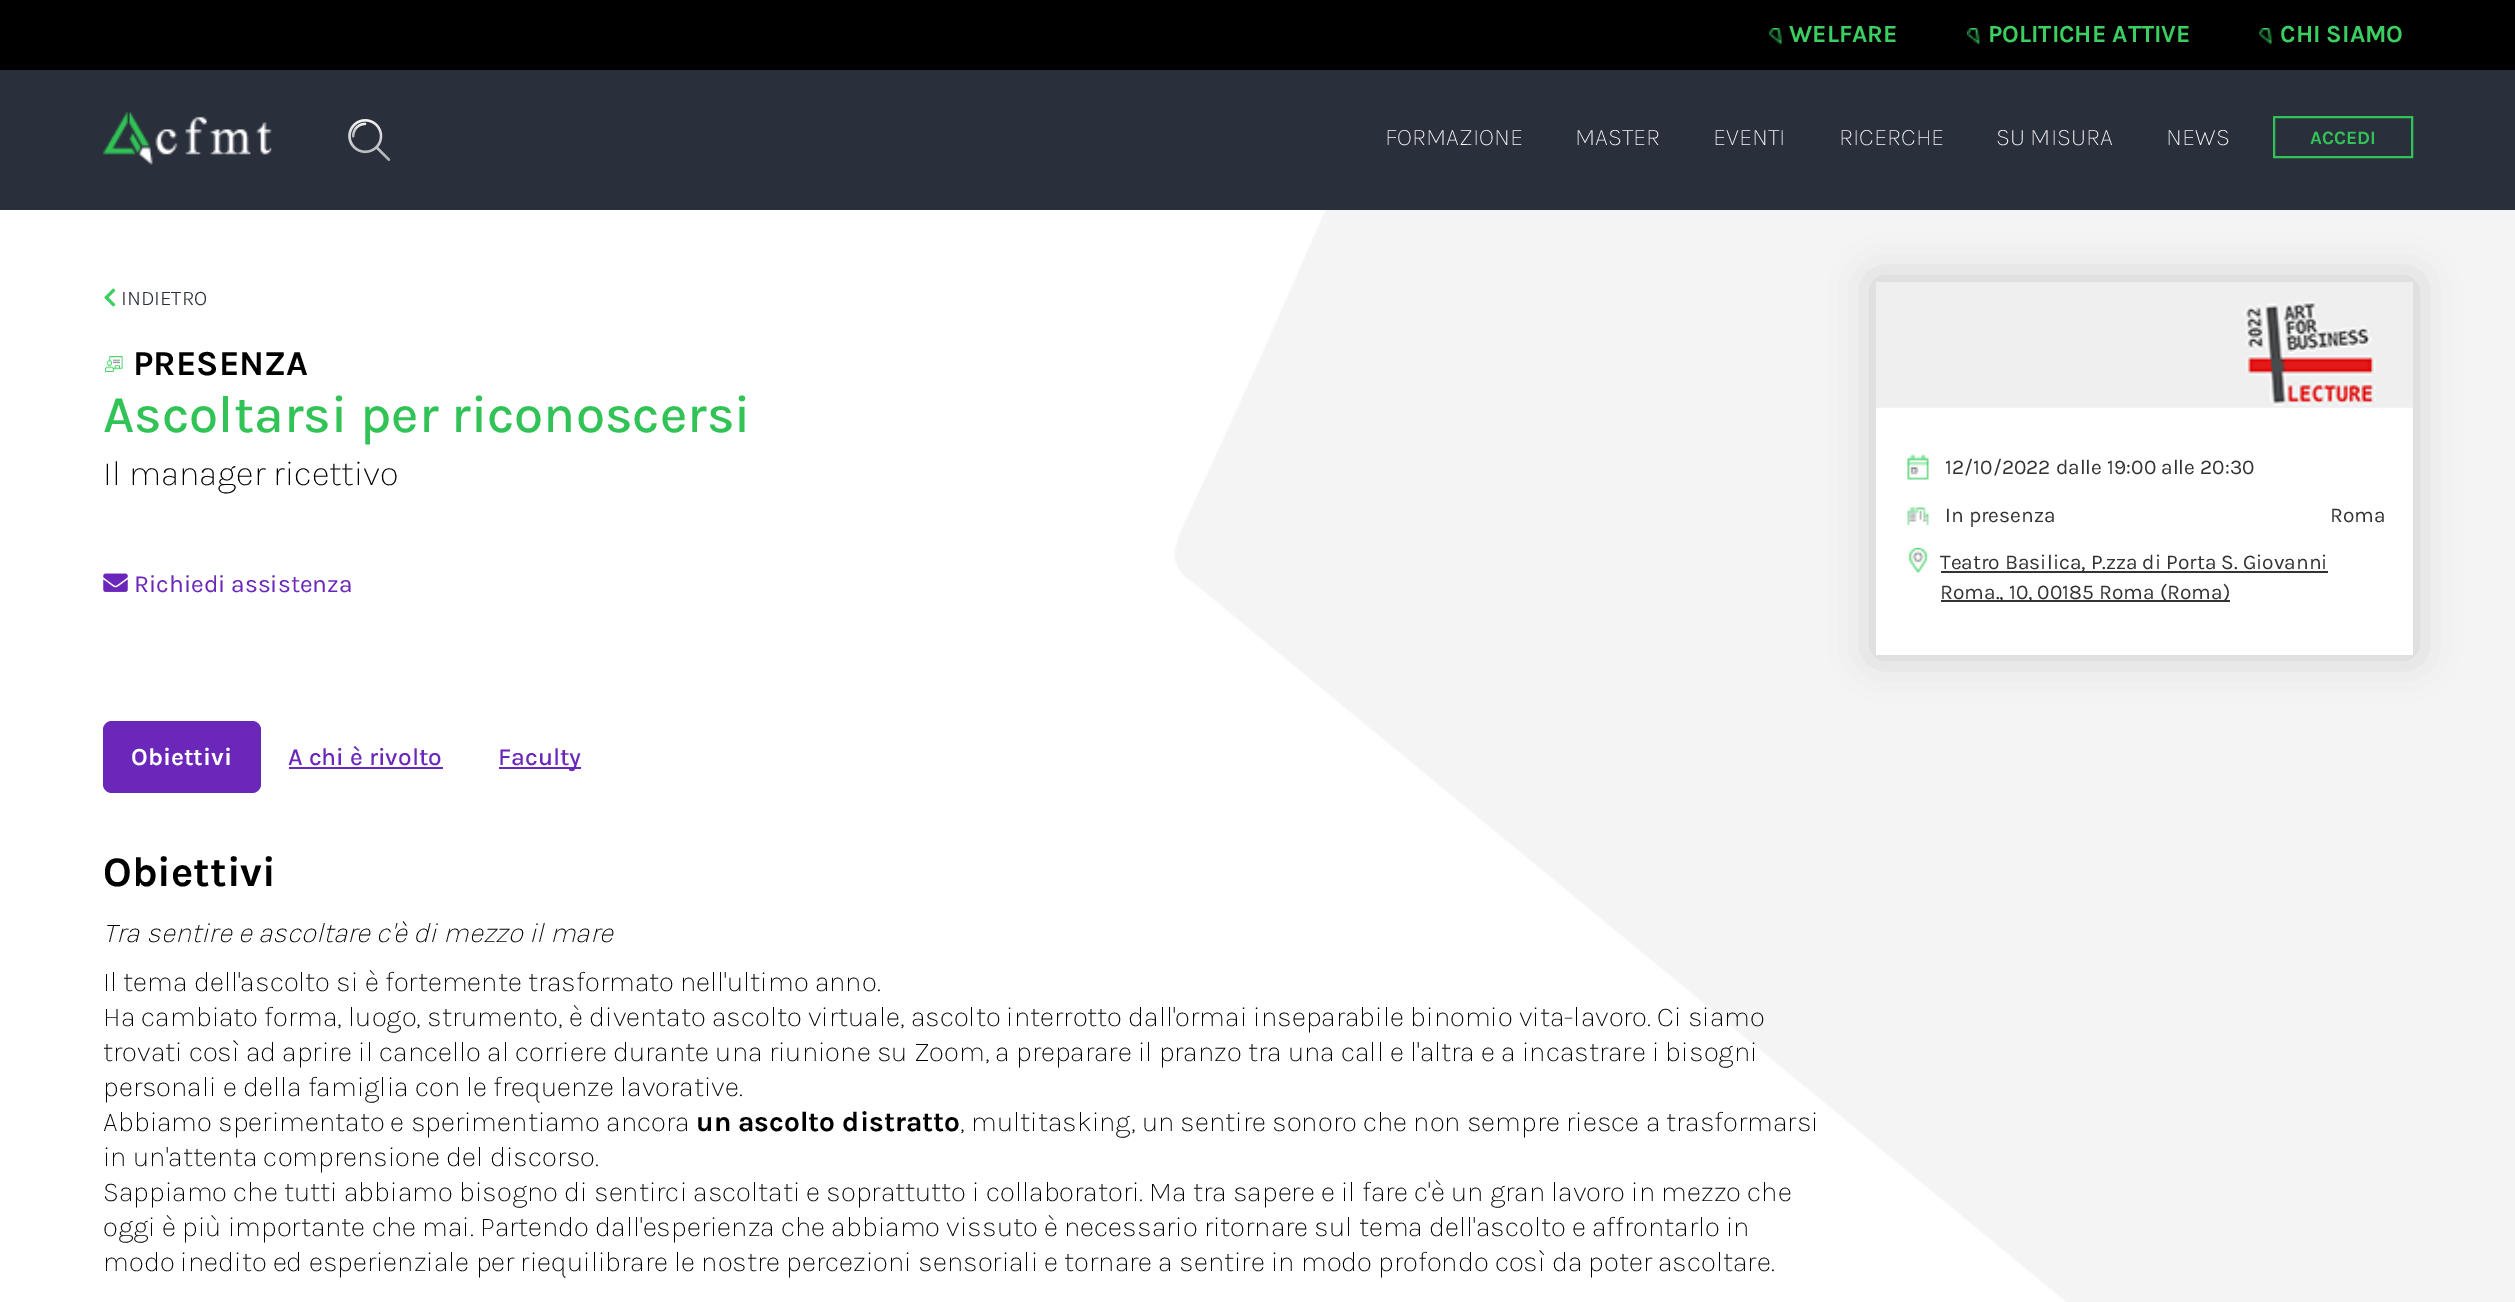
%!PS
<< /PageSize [2515 1302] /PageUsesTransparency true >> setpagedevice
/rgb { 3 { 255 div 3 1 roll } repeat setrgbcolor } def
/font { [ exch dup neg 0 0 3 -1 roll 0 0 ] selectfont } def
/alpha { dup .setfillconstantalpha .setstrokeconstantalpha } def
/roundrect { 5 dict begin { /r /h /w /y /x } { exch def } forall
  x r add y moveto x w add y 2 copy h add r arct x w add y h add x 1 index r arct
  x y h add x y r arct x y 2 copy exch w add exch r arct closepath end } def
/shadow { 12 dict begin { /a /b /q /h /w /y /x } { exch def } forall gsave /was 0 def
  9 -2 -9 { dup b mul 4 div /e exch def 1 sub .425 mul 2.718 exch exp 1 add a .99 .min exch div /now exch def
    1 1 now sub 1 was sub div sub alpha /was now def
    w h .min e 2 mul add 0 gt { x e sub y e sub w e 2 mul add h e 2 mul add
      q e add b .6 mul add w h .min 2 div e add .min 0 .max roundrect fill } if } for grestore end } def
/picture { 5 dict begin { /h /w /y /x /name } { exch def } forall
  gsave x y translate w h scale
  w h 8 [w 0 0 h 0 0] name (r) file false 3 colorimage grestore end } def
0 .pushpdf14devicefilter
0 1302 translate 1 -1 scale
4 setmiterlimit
255 255 255 rgb
0 0 2515 1302 rectfill
0 0 0 rgb
0 0 2515 70 rectfill
(img/1.rgb) 1769 28 13 17 picture
(img/2.rgb) 1967 28 13 17 picture
(img/3.rgb) 2259 28 13 17 picture
42 47 60 rgb
0 70 2515 140 rectfill
(img/4.rgb) 103 112 169 53 picture
(img/5.rgb) 348 119 43 42 picture
50 195 86 rgb
2 setlinewidth
2274 117 138 40 rectstroke
(img/6.rgb) 1174 210 1341 1092 picture
(img/7.rgb) 104 288 12 19 picture
(img/8.rgb) 105 356 18 16 picture
(img/9.rgb) 103 573 25 19 picture
0 0 0 rgb
1874 280 541 376 0 21 0.16 shadow
255 255 255 rgb
1876 407 537 248 rectfill
(img/10.rgb) 1876 282 537 126 picture
(img/11.rgb) 1907 454 22 26 picture
(img/12.rgb) 1907 507 22 19 picture
(img/13.rgb) 1908 547 20 26 picture
51 51 51 rgb
1941 571 387 2 rectfill
1941 600 289 2 rectfill
107 38 186 rgb
103 721 158 72 9 roundrect fill
289 767 154 2 rectfill
499 767 82 2 rectfill
/Karla-Bold 24.5 font
59 206 96 rgb
[
  [(WELFARE) 1789 42]
  [(POLITICHE ATTIVE) 1988 42]
  [(CHI SIAMO) 2280 42]
] { aload pop moveto show } forall
/Karla-ExtraLight 24.5 font
255 255 255 rgb
[
  [(FORMAZIONE) 1385 145]
  [(MASTER) 1575 145]
  [(EVENTI) 1713 145]
  [(RICERCHE) 1839 145]
  [(SU MISURA) 1996 145]
  [(NEWS) 2166 145]
] { aload pop moveto show } forall
/Karla-Bold 19 font
50 195 86 rgb
2310 144 moveto (ACCEDI) show
/Karla-Light 21 font
42 47 60 rgb
121 305 moveto (INDIETRO) show
/Karla-Bold 35 font
0 0 0 rgb
133 375 moveto (PRESENZA) show
/Karla-Medium 52.5 font
50 195 86 rgb
103 432 moveto (Ascoltarsi per riconoscersi) show
/Karla-ExtraLight 35 font
0 0 0 rgb
103 485 moveto (Il manager ricettivo) show
/Karla-Regular 24.5 font
107 38 186 rgb
134 592 moveto (Richiedi assistenza) show
/Karla-Regular 21 font
51 51 51 rgb
[
  [(12/10/2022 dalle 19:00 alle 20:30) 1945 474]
  [(In presenza) 1945 522]
  [(Roma) 2330 522]
  [(Teatro Basilica, P.zza di Porta S. Giovanni) 1940 569]
  [(Roma., 10, 00185 Roma \(Roma\)) 1940 599]
] { aload pop moveto show } forall
/Karla-Bold 24.5 font
255 255 255 rgb
131 765 moveto (Obiettivi) show
/Karla-Medium 24.5 font
107 38 186 rgb
288 765 moveto (A chi è rivolto) show
498 765 moveto (Faculty) show
/Karla-Bold 42 font
0 0 0 rgb
103 886 moveto (Obiettivi) show
/Karla-ExtraLightItalic 28 font
103 942 moveto (Tra sentire e ascoltare c'è di mezzo il mare) show
/Karla-ExtraLight 28 font
[
  [(Il tema dell'ascolto si è fortemente trasformato nell'ultimo anno.) 103 991]
  [(Ha cambiato forma, luogo, strumento, è diventato ascolto virtuale, ascolto interrotto dall'ormai inseparabile binomio vita-lavoro. Ci siamo) 103 1026]
  [(trovati così ad aprire il cancello al corriere durante una riunione su Zoom, a preparare il pranzo tra una call e l'altra e a incastrare i bisogni) 103 1061]
  [(personali e della famiglia con le frequenze lavorative.) 103 1096]
  [(Abbiamo sperimentato e sperimentiamo ancora) 103 1131]
] { aload pop moveto show } forall
/Karla-Bold 28 font
696 1131 moveto (un ascolto distratto) show
/Karla-ExtraLight 28 font
[
  [(, multitasking, un sentire sonoro che non sempre riesce a trasformarsi) 960 1131]
  [(in un'attenta comprensione del discorso.) 103 1166]
  [(Sappiamo che tutti abbiamo bisogno di sentirci ascoltati e soprattutto i collaboratori. Ma tra sapere e il fare c'è un gran lavoro in mezzo che) 103 1201]
  [(oggi è più importante che mai. Partendo dall'esperienza che abbiamo vissuto è necessario ritornare sul tema dell'ascolto e affrontarlo in) 103 1236]
  [(modo inedito ed esperienziale per riequilibrare le nostre percezioni sensoriali e tornare a sentire in modo profondo così da poter ascoltare.) 103 1271]
] { aload pop moveto show } forall
.poppdf14devicefilter showpage
